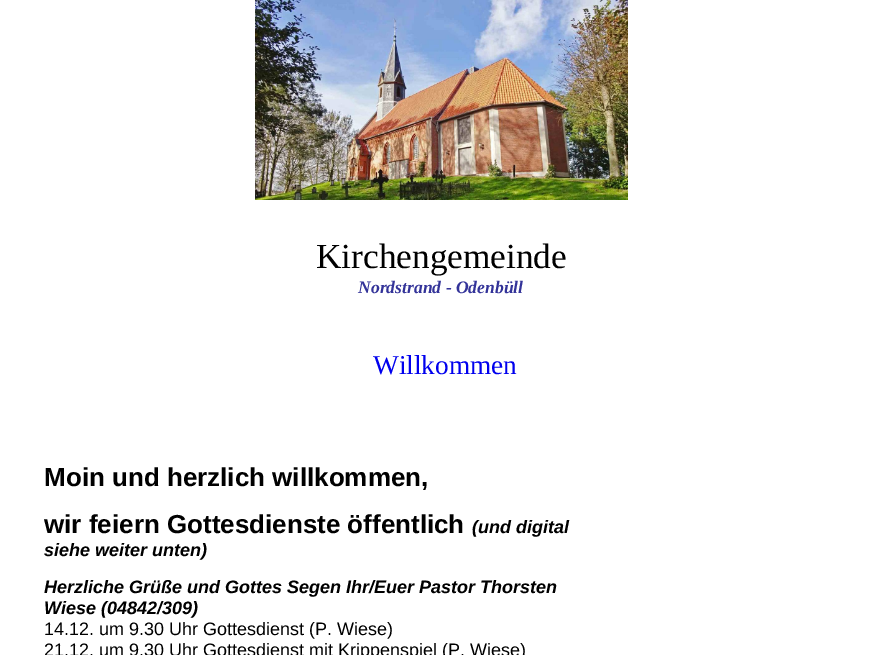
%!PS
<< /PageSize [882 655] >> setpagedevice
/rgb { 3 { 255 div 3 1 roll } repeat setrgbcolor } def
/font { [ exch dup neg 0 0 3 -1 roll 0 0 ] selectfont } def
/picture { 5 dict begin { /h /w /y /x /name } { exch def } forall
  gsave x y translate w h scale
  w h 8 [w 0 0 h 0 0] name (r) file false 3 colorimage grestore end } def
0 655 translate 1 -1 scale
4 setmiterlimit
255 255 255 rgb
0 0 882 655 rectfill
(img/1.rgb) 255 0 373 200 picture
/LiberationSerif-Regular 35.25 font
0 0 0 rgb
316 268 moveto (Kirchengemeinde) show
/LiberationSerif-BoldItalic 17.6 font
51 51 153 rgb
358 293 moveto (Nordstrand - Odenbüll) show
/LiberationSerif-Regular 27.25 font
0 0 238 rgb
373 374 moveto (Willkommen) show
/LiberationSans-Bold 26 font
0 0 0 rgb
44 486 moveto (Moin und herzlich willkommen,) show
44 533 moveto (wir feiern Gottesdienste öffentlich) show
/LiberationSans-BoldItalic 18 font
[
  [(\(und digital) 472 533]
  [(siehe weiter unten\)) 44 556]
  [(Herzliche Grüße und Gottes Segen Ihr/Euer Pastor Thorsten) 44 593]
  [(Wiese \(04842/309\)) 44 614]
] { aload pop moveto show } forall
/LiberationSans-Regular 18 font
44 635 moveto (14.12. um 9.30 Uhr Gottesdienst \(P. Wiese\)) show
44 656 moveto (21.12. um 9.30 Uhr Gottesdienst mit Krippenspiel \(P. Wiese\)) show
showpage
